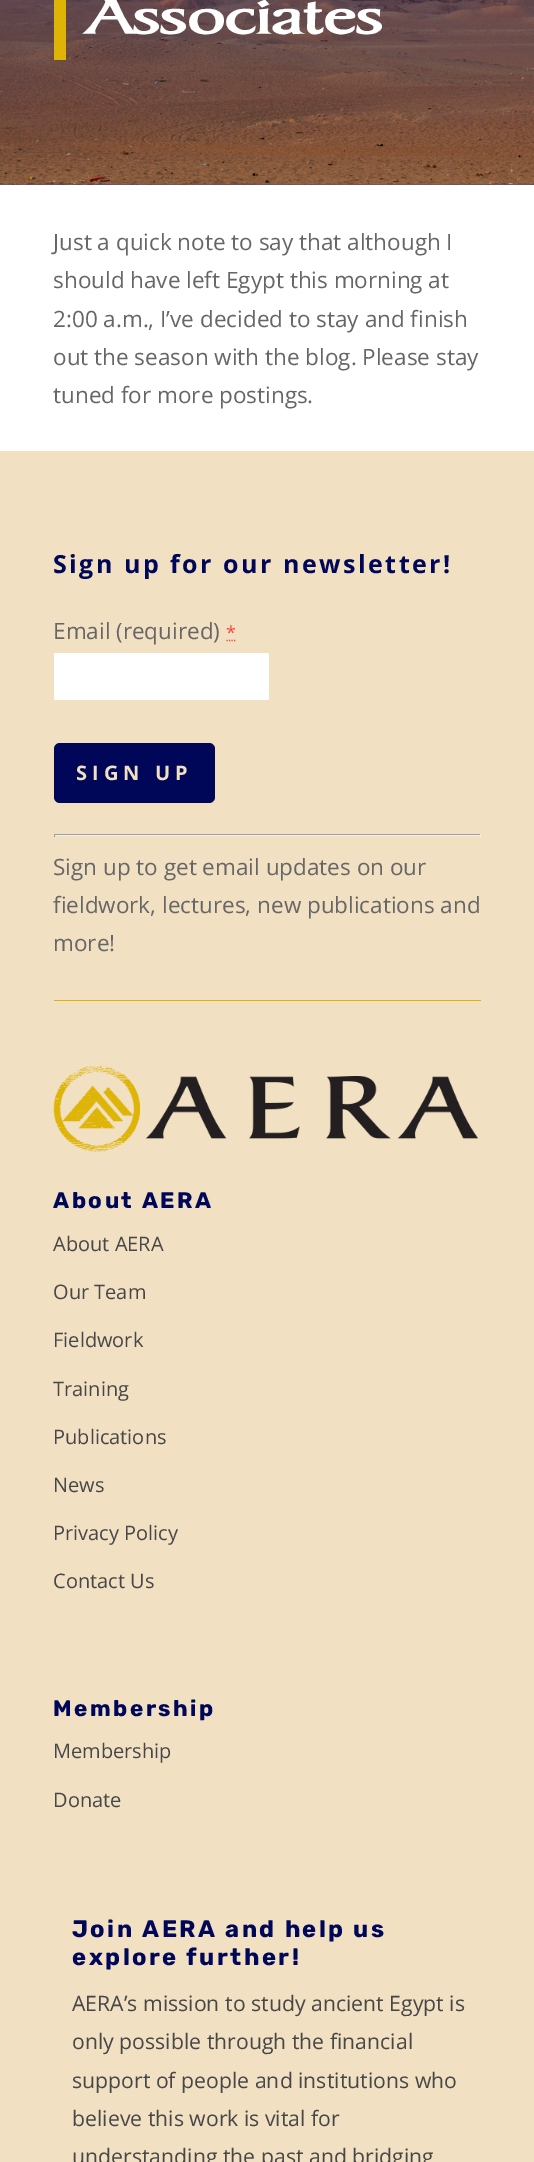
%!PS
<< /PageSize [534 2162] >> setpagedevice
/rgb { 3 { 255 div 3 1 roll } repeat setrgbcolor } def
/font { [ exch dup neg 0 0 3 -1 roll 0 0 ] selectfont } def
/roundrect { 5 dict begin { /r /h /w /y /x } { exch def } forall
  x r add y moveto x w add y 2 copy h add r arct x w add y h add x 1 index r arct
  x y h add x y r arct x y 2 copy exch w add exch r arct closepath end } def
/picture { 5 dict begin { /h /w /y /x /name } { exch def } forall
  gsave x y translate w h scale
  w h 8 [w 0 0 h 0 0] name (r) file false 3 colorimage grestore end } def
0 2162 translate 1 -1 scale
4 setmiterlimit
255 255 255 rgb
0 0 534 2162 rectfill
79 84 141 rgb
0 184 534 1 rectfill
(img/1.rgb) 0 0 534 185 picture
222 180 6 rgb
54 0 12 60 rectfill
241 224 194 rgb
0 451 534 1711 rectfill
255 65 54 rgb
1.2 setlinewidth
[1.25 1.25] 0 setdash
226.5 640.5 moveto 236 640.5 lineto stroke
255 255 255 rgb
54 653 215 47 rectfill
0 7 89 rgb
54 743 161 60 6 roundrect fill
[
  [54 834 427 1 159 159 159]
  [480 834 1 3 238 238 238]
  [54 835 427 1 238 238 238]
  [54 834 1 3 159 159 159]
  [54 1000 427 1 222 180 6]
] { aload pop rgb rectfill } forall
(img/2.rgb) 53 1065 425 87 picture
/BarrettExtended-Bold 52.5 font
255 255 255 rgb
87 33 moveto (Associates) show
/OpenSans-Regular 22.5 font
102 102 102 rgb
[
  [(Just a quick note to say that although I) 53 250]
  [(should have left Egypt this morning at) 53 288]
  [(2:00 a.m., I’ve decided to stay and finish) 53 327]
  [(out the season with the blog. Please stay) 53 365]
  [(tuned for more postings.) 53 403]
] { aload pop moveto show } forall
/OpenSans-Bold 25 font
0 7 89 rgb
53 573 moveto 2.5 0 (Sign up for our newsletter!) ashow
/OpenSans-Regular 22.5 font
102 102 102 rgb
53 639 moveto (Email \(required\)) show
/OpenSans-Regular 18 font
255 65 54 rgb
226 639 moveto (*) show
/OpenSans-Bold 20 font
241 224 194 rgb
76 780 moveto 5 0 (SIGN UP) ashow
/OpenSans-Regular 22.5 font
102 102 102 rgb
[
  [(Sign up to get email updates on our) 53 875]
  [(fieldwork, lectures, new publications and) 53 913]
  [(more!) 53 951]
] { aload pop moveto show } forall
/Rubik-Bold 22.5 font
0 7 89 rgb
53 1208 moveto 2.5 0 (About AERA) ashow
/OpenSans-Regular 20 font
71 71 71 rgb
[
  [(About AERA) 53 1251]
  [(Our Team) 53 1299]
  [(Fieldwork) 53 1347]
  [(Training) 53 1396]
  [(Publications) 53 1444]
  [(News) 53 1492]
  [(Privacy Policy) 53 1540]
  [(Contact Us) 53 1588]
] { aload pop moveto show } forall
/Rubik-Bold 22.5 font
0 7 89 rgb
53 1716 moveto 2.5 0 (Membership) ashow
/OpenSans-Regular 20 font
71 71 71 rgb
53 1758 moveto (Membership) show
53 1807 moveto (Donate) show
/Rubik-Bold 23.75 font
0 7 89 rgb
72 1937 moveto 2.5 0 (Join AERA and help us) ashow
72 1965 moveto 2.5 0 (explore further!) ashow
/OpenSans-Regular 21.25 font
71 71 71 rgb
[
  [(AERA’s mission to study ancient Egypt is) 72 2011]
  [(only possible through the financial) 72 2049]
  [(support of people and institutions who) 72 2088]
  [(believe this work is vital for) 72 2126]
  [(understanding the past and bridging) 72 2164]
] { aload pop moveto show } forall
showpage
